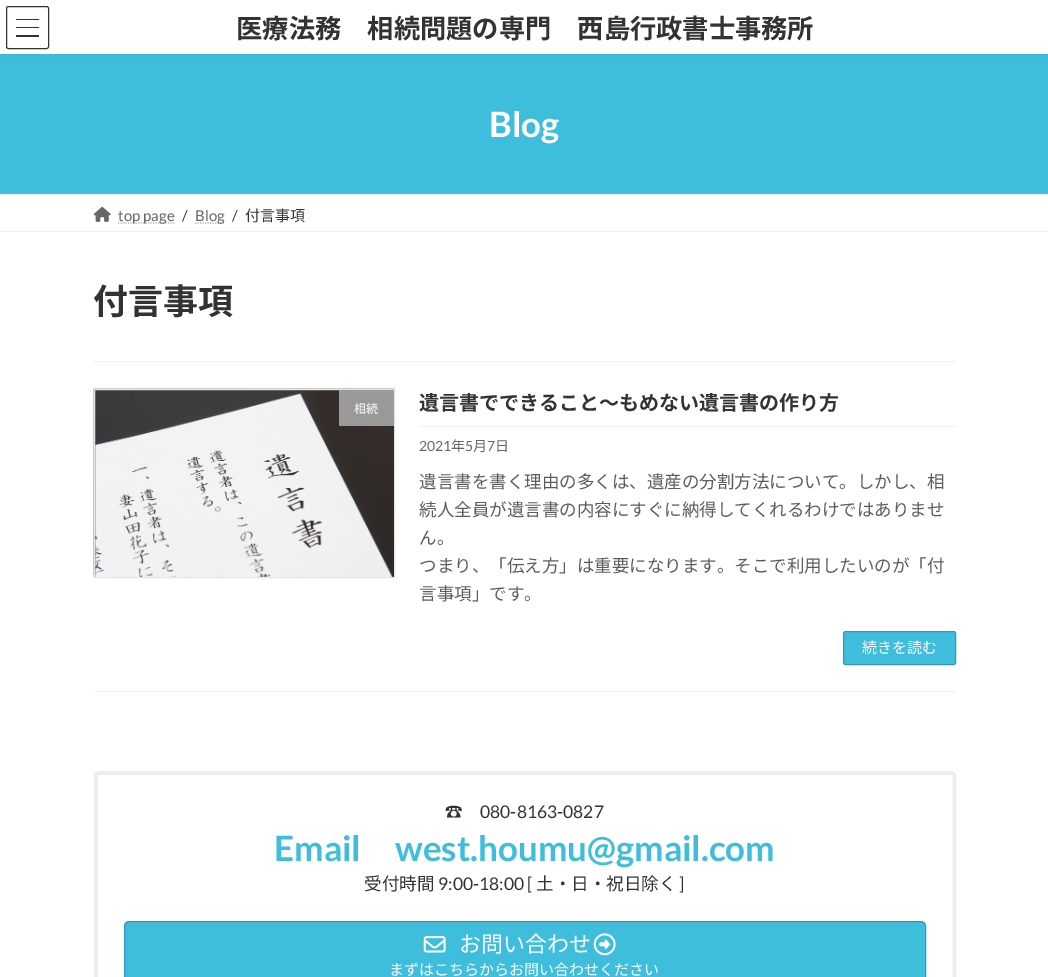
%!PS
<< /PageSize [1048 977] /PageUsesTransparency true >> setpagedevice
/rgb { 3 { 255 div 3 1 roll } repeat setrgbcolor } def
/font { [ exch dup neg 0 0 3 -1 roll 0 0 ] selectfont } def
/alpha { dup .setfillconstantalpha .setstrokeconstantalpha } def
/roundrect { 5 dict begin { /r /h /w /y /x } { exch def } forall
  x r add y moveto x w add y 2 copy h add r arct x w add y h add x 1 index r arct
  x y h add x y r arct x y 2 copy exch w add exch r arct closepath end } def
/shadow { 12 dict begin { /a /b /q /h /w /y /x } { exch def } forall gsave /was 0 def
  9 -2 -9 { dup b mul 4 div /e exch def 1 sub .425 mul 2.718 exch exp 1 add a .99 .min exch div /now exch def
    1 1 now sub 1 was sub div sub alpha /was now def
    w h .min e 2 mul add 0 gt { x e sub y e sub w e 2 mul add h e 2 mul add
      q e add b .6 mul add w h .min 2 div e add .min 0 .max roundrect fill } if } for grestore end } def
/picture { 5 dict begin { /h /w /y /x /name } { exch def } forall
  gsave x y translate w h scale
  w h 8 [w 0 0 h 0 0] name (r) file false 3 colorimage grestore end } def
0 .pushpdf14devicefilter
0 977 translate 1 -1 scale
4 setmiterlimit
255 255 255 rgb
0 0 1048 977 rectfill
62 189 221 rgb
0 54 1048 140 rectfill
0 0 0 rgb
0 1 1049 54 0 2 0.05 shadow
[
  [0 0 1048 54 255 255 255]
  [16 19 23 1 51 51 51]
  [16 27 23 1 51 51 51]
  [16 35 23 2 51 51 51]
] { aload pop rgb rectfill } forall
6.5 6.5 42 42 2 roundrect stroke
240 240 240 rgb
0 194 1048 1 rectfill
0 231 1048 1 rectfill
(img/1.rgb) 93 206 18 16 picture
179 179 179 rgb
1.2 setlinewidth
[1.25 1.25] 0 setdash
118 223 moveto 174.5 223 lineto stroke
195 223 moveto 224.5 223 lineto stroke
240 240 240 rgb
94 361 862 1 rectfill
94 691 862 1 rectfill
(img/2.rgb) 93 388 302 190 picture
229 229 229 rgb
1 setlinewidth
[] 0 setdash
94.5 389.5 300 188 rectstroke
153 153 153 rgb
339 390 55 36 rectfill
240 240 240 rgb
420 426 536 1 rectfill
62 189 221 rgb
843.5 631.5 112 33 2 roundrect gsave fill grestore
50 151 177 rgb
stroke
237 237 237 rgb
4 setlinewidth
96 773 858 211 3 roundrect stroke
0.8 alpha
255 255 255 rgb
99 775 moveto 98 775 98 775 98 776 curveto 98 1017 lineto 98 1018 98 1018 99 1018 curveto 952 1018 lineto 953 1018 953 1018 953 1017 curveto 953 776 lineto 953 775 953 775 952 775 curveto closepath 99 776 moveto 99 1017 lineto 952 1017 lineto 952 776 lineto closepath eofill
1 alpha
62 189 221 rgb
124.5 921.5 801 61 4.5 roundrect gsave fill grestore
50 151 177 rgb
1 setlinewidth
stroke
(img/3.rgb) 423 936 23 17 picture
(img/4.rgb) 593 933 23 23 picture
/NotoSansJP-Bold 26.25 font
51 51 51 rgb
236 38 moveto (医療法務　相続問題の専門　西島行政書士事務所) show
/Lato-Bold 35 font
255 255 255 rgb
489 137 moveto (Blog) show
/Lato-Regular 15 font
102 102 102 rgb
118 221 moveto (top page) show
51 51 51 rgb
182 221 moveto (/) show
102 102 102 rgb
195 221 moveto (Blog) show
51 51 51 rgb
232 221 moveto (/) show
/NotoSansJP-Regular 15 font
245 221 moveto (付言事項) show
/NotoSansJP-Bold 35 font
93 314 moveto (付言事項) show
/NotoSansJP-Regular 12 font
255 255 255 rgb
354 413 moveto (相続) show
/NotoSansJP-Bold 20 font
51 51 51 rgb
419 410 moveto (遺言書でできること～もめない遺言書の作り方) show
/Lato-Regular 14 font
102 102 102 rgb
419 451 moveto (2021) show
/NotoSansJP-Regular 14 font
451 451 moveto (年) show
/Lato-Regular 14 font
465 451 moveto (5) show
/NotoSansJP-Regular 14 font
473 451 moveto (月) show
/Lato-Regular 14 font
487 451 moveto (7) show
/NotoSansJP-Regular 14 font
495 451 moveto (日) show
/NotoSansJP-Regular 17.5 font
92 92 92 rgb
[
  [(遺言書を書く理由の多くは、遺産の分割方法について。しかし、相) 419 488]
  [(続人全員が遺言書の内容にすぐに納得してくれるわけではありませ) 419 516]
  [(ん。) 419 544]
  [(つまり、「伝え方」は重要になります。そこで利用したいのが「付) 419 572]
  [(言事項」です。) 419 600]
] { aload pop moveto show } forall
/NotoSansJP-Regular 15 font
255 255 255 rgb
862 653 moveto (続きを読む) show
/NotoSansJP-Regular 17.5 font
51 51 51 rgb
445 818 moveto (☎) show
/Lato-Regular 17.5 font
480 818 moveto (080-8163-0827) show
/Lato-Bold 35 font
62 189 221 rgb
274 861 moveto (Email) show
395 861 moveto (west.houmu@gmail.com) show
/NotoSansJP-Regular 17.5 font
51 51 51 rgb
364 890 moveto (受付時間) show
/Lato-Regular 17.5 font
438 890 moveto (9:00-18:00 [) show
/NotoSansJP-Regular 17.5 font
536 890 moveto (土・日・祝日除く) show
/Lato-Regular 17.5 font
679 890 moveto (]) show
/NotoSansJP-Regular 22 font
255 255 255 rgb
459 952 moveto (お問い合わせ) show
/NotoSansJP-Regular 15 font
389 975 moveto (まずはこちらからお問い合わせください) show
.poppdf14devicefilter showpage
